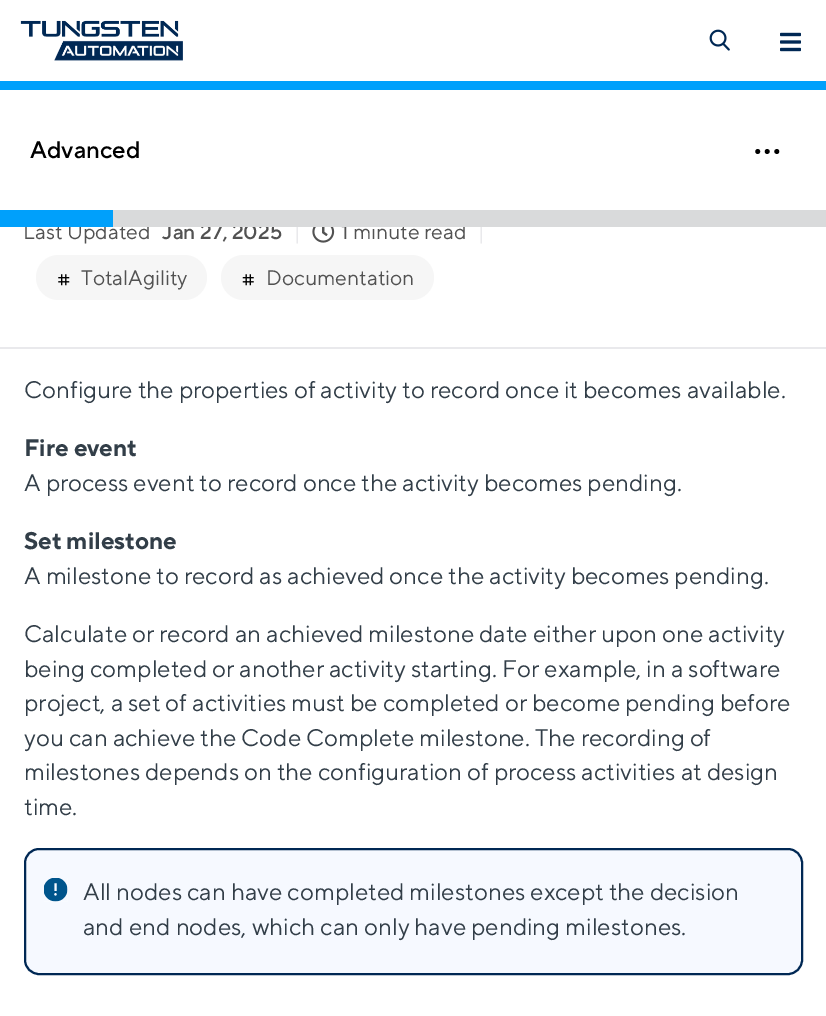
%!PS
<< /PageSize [826 1016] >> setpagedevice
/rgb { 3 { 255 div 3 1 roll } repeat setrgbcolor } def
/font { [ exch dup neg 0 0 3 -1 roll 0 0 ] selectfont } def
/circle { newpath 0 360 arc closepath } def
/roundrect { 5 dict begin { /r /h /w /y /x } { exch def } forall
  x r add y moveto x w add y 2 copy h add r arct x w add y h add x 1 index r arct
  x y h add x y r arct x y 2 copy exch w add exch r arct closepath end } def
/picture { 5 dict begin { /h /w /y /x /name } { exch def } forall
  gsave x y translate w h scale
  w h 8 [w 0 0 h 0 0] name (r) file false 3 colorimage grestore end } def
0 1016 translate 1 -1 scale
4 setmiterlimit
255 255 255 rgb
0 0 826 1016 rectfill
0 160 251 rgb
0 81 826 9 rectfill
(img/1.rgb) 20 20 163 41 picture
(img/2.rgb) 709 29 21 22 picture
(img/3.rgb) 780 32 21 20 picture
0 0 0 rgb
757.7 151.5 2.4 circle fill
767.2 151.5 2.4 circle fill
776.8 151.5 2.4 circle fill
233 233 236 rgb
0 347 826 2 rectfill
(img/4.rgb) 312 227 23 16 picture
246 246 246 rgb
36 255 171 45 22.5 roundrect fill
(img/5.rgb) 58 274 12 12 picture
221 255 213 45 22.5 roundrect fill
(img/6.rgb) 242 274 12 12 picture
246 249 255 rgb
25 849 777 125 14 roundrect gsave fill grestore
0 40 84 rgb
2 setlinewidth
stroke
(img/7.rgb) 44 878 24 24 picture
/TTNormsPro-Medium 24 font
0 0 0 rgb
30 158 moveto (Advanced) show
/TTNormsPro-Regular 21 font
82 82 82 rgb
23 239 moveto (Last Updated) show
0 160 251 rgb
0 210 113 17 rectfill
/TTNormsPro-Medium 21 font
82 82 82 rgb
162 239 moveto (Jan 27, 2025) show
/TTNormsPro-Regular 21 font
233 233 236 rgb
294 239 moveto (|) show
82 82 82 rgb
341 239 moveto (1 minute read) show
233 233 236 rgb
478 239 moveto (|) show
217 218 219 rgb
113 210 713 17 rectfill
82 82 82 rgb
81 285 moveto (TotalAgility) show
266 285 moveto (Documentation) show
/TTNormsPro-Regular 24 font
50 62 72 rgb
24 398 moveto (Configure the properties of activity to record once it becomes available.) show
/TTNormsPro-Bold 24 font
24 456 moveto (Fire event) show
/TTNormsPro-Regular 24 font
24 491 moveto (A process event to record once the activity becomes pending.) show
/TTNormsPro-Bold 24 font
24 549 moveto (Set milestone) show
/TTNormsPro-Regular 24 font
[
  [(A milestone to record as achieved once the activity becomes pending.) 24 584]
  [(Calculate or record an achieved milestone date either upon one activity) 24 642]
  [(being completed or another activity starting. For example, in a software) 24 677]
  [(project, a set of activities must be completed or become pending before) 24 711]
  [(you can achieve the Code Complete milestone. The recording of) 24 746]
  [(milestones depends on the configuration of process activities at design) 24 780]
  [(time.) 24 815]
  [(All nodes can have completed milestones except the decision) 83 900]
  [(and end nodes, which can only have pending milestones.) 83 935]
] { aload pop moveto show } forall
showpage
